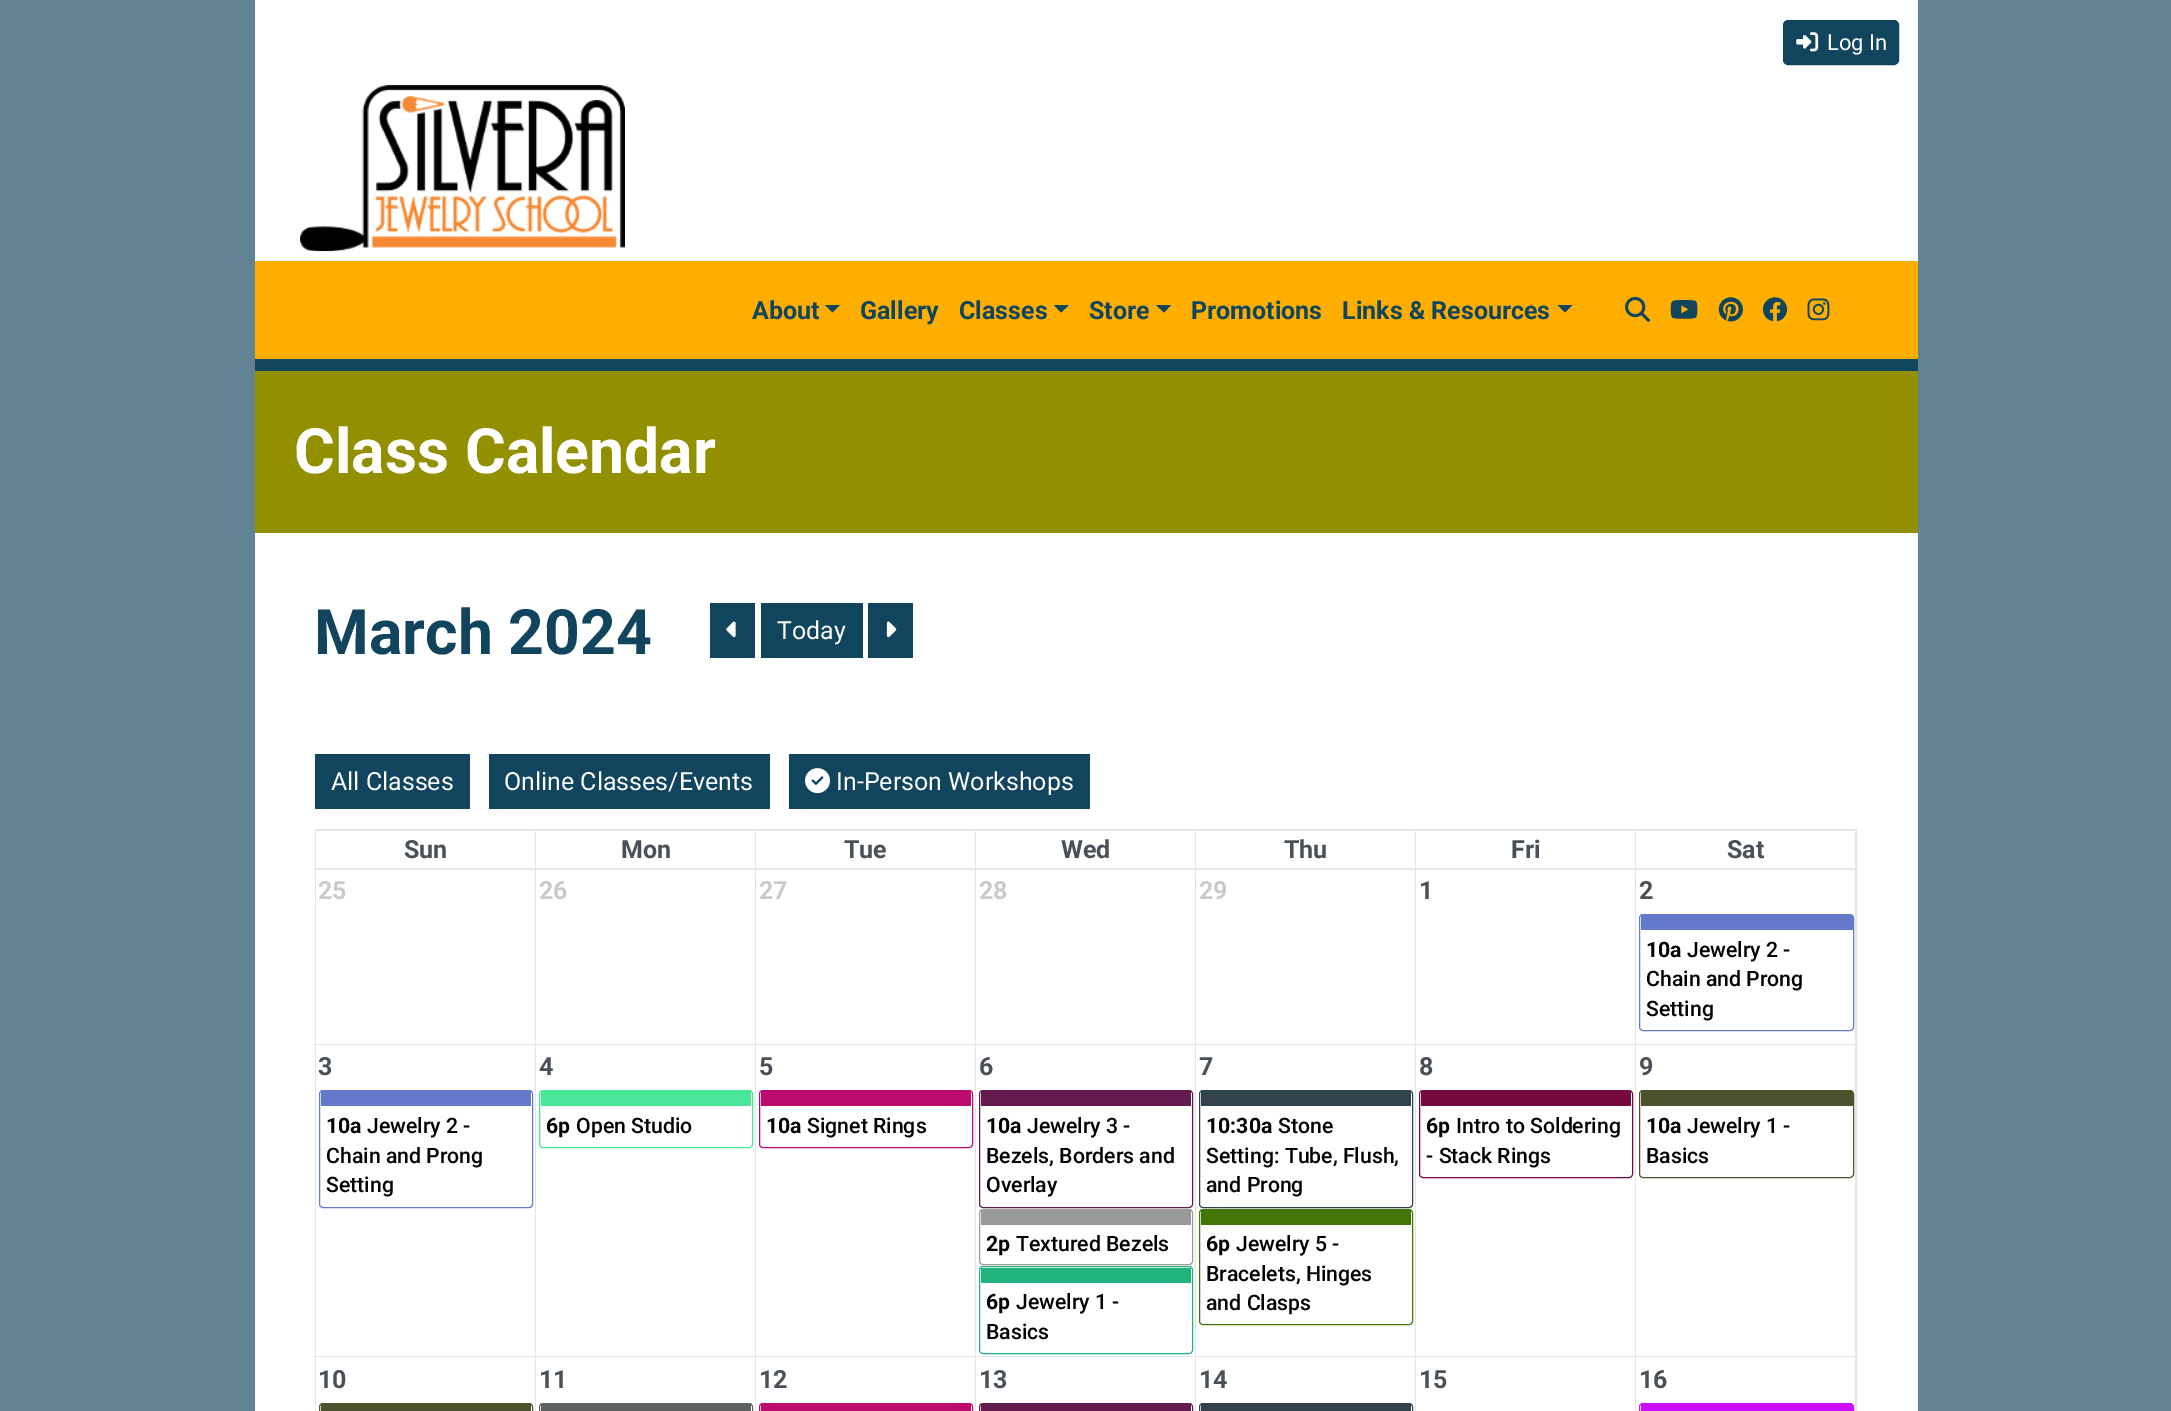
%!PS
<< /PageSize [2171 1411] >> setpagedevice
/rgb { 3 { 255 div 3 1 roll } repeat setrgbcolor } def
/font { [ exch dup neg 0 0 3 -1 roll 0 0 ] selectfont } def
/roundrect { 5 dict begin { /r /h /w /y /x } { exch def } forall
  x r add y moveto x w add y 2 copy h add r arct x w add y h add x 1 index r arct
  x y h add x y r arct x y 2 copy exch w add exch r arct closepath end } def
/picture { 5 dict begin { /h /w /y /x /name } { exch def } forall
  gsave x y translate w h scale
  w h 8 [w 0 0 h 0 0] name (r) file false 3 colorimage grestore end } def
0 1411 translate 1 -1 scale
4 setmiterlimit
98 131 146 rgb
0 0 2171 1411 rectfill
255 255 255 rgb
255 0 1663 261 rectfill
17 68 93 rgb
1783.5 20.5 115 44 4.5 roundrect gsave fill grestore
stroke
(img/1.rgb) 1796 32 23 20 picture
(img/2.rgb) 300 85 325 167 picture
254 174 0 rgb
255 261 1663 98 rectfill
17 68 93 rgb
255 359 1663 12 rectfill
825 305 moveto 840 305 lineto 832.5 312.5 lineto closepath fill
1054 305 moveto 1069 305 lineto 1061 312.5 lineto closepath fill
1156 305 moveto 1171 305 lineto 1164 312.5 lineto closepath fill
1557.5 305 moveto 1572.5 305 lineto 1565 312.5 lineto closepath fill
(img/3.rgb) 1625 296 25 26 picture
(img/4.rgb) 1670 300 28 19 picture
(img/5.rgb) 1718 297 25 25 picture
(img/6.rgb) 1762 297 26 25 picture
(img/7.rgb) 1807 298 23 23 picture
[
  [255 371 1663 162 146 144 0]
  [255 533 1663 878 255 255 255]
  [710 603 45 55 17 68 93]
] { aload pop rgb rectfill } forall
(img/8.rgb) 726 621 10 17 picture
761 603 102 55 rectfill
868 603 45 55 rectfill
(img/9.rgb) 886 621 11 17 picture
[
  [315 754 155 55 17 68 93]
  [489 754 281 55 17 68 93]
  [789 754 301 55 17 68 93]
] { aload pop rgb rectfill } forall
(img/10.rgb) 805 768 25 26 picture
[
  [315 829 1543 1 229 229 229]
  [315 868 1543 1 229 229 229]
  [1856 868 1 543 229 229 229]
  [1856 829 1 40 229 229 229]
  [315 868 1 543 229 229 229]
  [315 829 1 40 229 229 229]
  [1635 830 221 1 229 229 229]
  [1635 830 1 39 229 229 229]
  [1415 830 221 1 229 229 229]
  [1415 830 1 39 229 229 229]
  [1195 830 221 1 229 229 229]
  [1195 830 1 39 229 229 229]
  [975 830 221 1 229 229 229]
  [975 830 1 39 229 229 229]
  [755 830 221 1 229 229 229]
  [755 830 1 39 229 229 229]
  [535 830 221 1 229 229 229]
  [535 830 1 39 229 229 229]
  [315 830 221 1 229 229 229]
  [1855 830 1 39 229 229 229]
  [1635 869 221 1 229 229 229]
  [1855 869 1 176 229 229 229]
  [1635 1044 221 1 229 229 229]
  [1635 869 1 176 229 229 229]
  [1415 869 221 1 229 229 229]
  [1415 1044 221 1 229 229 229]
  [1415 869 1 176 229 229 229]
  [1195 869 221 1 229 229 229]
  [1195 1044 221 1 229 229 229]
  [1195 869 1 176 229 229 229]
  [975 869 221 1 229 229 229]
  [975 1044 221 1 229 229 229]
  [975 869 1 176 229 229 229]
  [755 869 221 1 229 229 229]
  [755 1044 221 1 229 229 229]
  [755 869 1 176 229 229 229]
  [535 869 221 1 229 229 229]
  [535 1044 221 1 229 229 229]
  [535 869 1 176 229 229 229]
  [316 869 220 1 229 229 229]
  [316 1044 220 1 229 229 229]
] { aload pop rgb rectfill } forall
99 121 202 rgb
1639.5 914.5 214 116 3.5 roundrect stroke
[
  [1641 915 212 15 99 121 202]
  [1855 1044 1 314 229 229 229]
  [1635 1356 221 1 229 229 229]
  [1635 1044 1 314 229 229 229]
  [1415 1356 221 1 229 229 229]
  [1415 1044 1 314 229 229 229]
  [1195 1356 221 1 229 229 229]
  [1195 1044 1 314 229 229 229]
  [975 1356 221 1 229 229 229]
  [975 1044 1 314 229 229 229]
  [755 1356 221 1 229 229 229]
  [755 1044 1 314 229 229 229]
  [535 1356 221 1 229 229 229]
  [535 1044 1 314 229 229 229]
  [316 1356 220 1 229 229 229]
] { aload pop rgb rectfill } forall
99 121 202 rgb
319.5 1090.5 213 117 3.5 roundrect stroke
321 1091 210 15 rectfill
75 231 153 rgb
539.5 1090.5 213 57 3.5 roundrect stroke
541 1091 210 15 rectfill
188 11 108 rgb
759.5 1090.5 213 57 3.5 roundrect stroke
761 1091 210 15 rectfill
100 27 77 rgb
979.5 1090.5 213 117 3.5 roundrect stroke
981 1091 210 15 rectfill
50 67 78 rgb
1199.5 1090.5 213 117 3.5 roundrect stroke
1201 1091 210 15 rectfill
118 10 62 rgb
1419.5 1090.5 213 87 3.5 roundrect stroke
1421 1091 210 15 rectfill
78 82 45 rgb
1639.5 1090.5 214 87 3.5 roundrect stroke
1641 1091 212 15 rectfill
153 153 153 rgb
979.5 1209.5 213 55 3.5 roundrect stroke
981 1210 210 15 rectfill
66 119 8 rgb
1199.5 1209.5 213 115 3.5 roundrect stroke
1201 1210 210 15 rectfill
34 180 127 rgb
979.5 1266.5 213 87 3.5 roundrect stroke
[
  [981 1268 210 15 34 180 127]
  [535 1356 1 55 229 229 229]
  [755 1356 1 55 229 229 229]
  [975 1356 1 55 229 229 229]
  [1195 1356 1 55 229 229 229]
  [1415 1356 1 55 229 229 229]
  [1855 1356 1 55 229 229 229]
  [1635 1356 1 55 229 229 229]
] { aload pop rgb rectfill } forall
78 82 45 rgb
319.5 1403.5 213 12 3.5 roundrect stroke
321 1404 210 7 rectfill
92 97 97 rgb
539.5 1403.5 213 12 3.5 roundrect stroke
541 1404 210 7 rectfill
188 11 108 rgb
759.5 1403.5 213 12 3.5 roundrect stroke
761 1404 210 7 rectfill
100 27 77 rgb
979.5 1403.5 213 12 3.5 roundrect stroke
981 1404 210 7 rectfill
50 67 78 rgb
1199.5 1403.5 213 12 3.5 roundrect stroke
1201 1404 210 7 rectfill
205 13 253 rgb
1639.5 1403.5 214 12 3.5 roundrect stroke
1641 1404 212 7 rectfill
/Roboto-Regular 22 font
255 255 255 rgb
1827 50 moveto (Log In) show
/Roboto-Bold 25 font
17 68 93 rgb
[
  [(About) 752 319]
  [(Gallery) 860 319]
  [(Classes) 959 319]
  [(Store) 1089 319]
  [(Promotions) 1191 319]
  [(Links & Resources) 1342 319]
] { aload pop moveto show } forall
/Roboto-Bold 62.5 font
255 255 255 rgb
294 473 moveto (Class Calendar) show
17 68 93 rgb
314 654 moveto (March 2024) show
/Roboto-Regular 25 font
255 255 255 rgb
[
  [(Today) 777 639]
  [(All Classes) 331 790]
  [(Online Classes/Events) 504 790]
  [(In-Person Workshops) 836 790]
] { aload pop moveto show } forall
/Roboto-Bold 25 font
73 80 87 rgb
[
  [(Sun) 404 858]
  [(Mon) 621 858]
  [(Tue) 844 858]
  [(Wed) 1061 858]
  [(Thu) 1284 858]
  [(Fri) 1511 858]
  [(Sat) 1727 858]
] { aload pop moveto show } forall
200 203 205 rgb
[
  [(25) 318 899]
  [(26) 539 899]
  [(27) 759 899]
  [(28) 979 899]
  [(29) 1199 899]
] { aload pop moveto show } forall
73 80 87 rgb
1419 899 moveto (1) show
1639 899 moveto (2) show
/Roboto-Bold 21.25 font
0 0 0 rgb
1646 957 moveto (10a) show
/Roboto-Medium 21.25 font
[
  [(Jewelry 2 -) 1687 957]
  [(Chain and Prong) 1646 986]
  [(Setting) 1646 1016]
] { aload pop moveto show } forall
/Roboto-Bold 25 font
73 80 87 rgb
[
  [(3) 318 1075]
  [(4) 539 1075]
  [(5) 759 1075]
  [(6) 979 1075]
  [(7) 1199 1075]
  [(8) 1419 1075]
  [(9) 1639 1075]
] { aload pop moveto show } forall
/Roboto-Bold 21.25 font
0 0 0 rgb
326 1133 moveto (10a) show
/Roboto-Medium 21.25 font
[
  [(Jewelry 2 -) 367 1133]
  [(Chain and Prong) 326 1163]
  [(Setting) 326 1192]
] { aload pop moveto show } forall
/Roboto-Bold 21.25 font
546 1133 moveto (6p) show
/Roboto-Medium 21.25 font
576 1133 moveto (Open Studio) show
/Roboto-Bold 21.25 font
766 1133 moveto (10a) show
/Roboto-Medium 21.25 font
807 1133 moveto (Signet Rings) show
/Roboto-Bold 21.25 font
986 1133 moveto (10a) show
/Roboto-Medium 21.25 font
[
  [(Jewelry 3 -) 1027 1133]
  [(Bezels, Borders and) 986 1163]
  [(Overlay) 986 1192]
] { aload pop moveto show } forall
/Roboto-Bold 21.25 font
1206 1133 moveto (10:30a) show
/Roboto-Medium 21.25 font
[
  [(Stone) 1278 1133]
  [(Setting: Tube, Flush,) 1206 1163]
  [(and Prong) 1206 1192]
] { aload pop moveto show } forall
/Roboto-Bold 21.25 font
1426 1133 moveto (6p) show
/Roboto-Medium 21.25 font
1456 1133 moveto (Intro to Soldering) show
1426 1163 moveto (- Stack Rings) show
/Roboto-Bold 21.25 font
1646 1133 moveto (10a) show
/Roboto-Medium 21.25 font
1687 1133 moveto (Jewelry 1 -) show
1646 1163 moveto (Basics) show
/Roboto-Bold 21.25 font
986 1251 moveto (2p) show
/Roboto-Medium 21.25 font
1016 1251 moveto (Textured Bezels) show
/Roboto-Bold 21.25 font
1206 1251 moveto (6p) show
/Roboto-Medium 21.25 font
[
  [(Jewelry 5 -) 1236 1251]
  [(Bracelets, Hinges) 1206 1281]
  [(and Clasps) 1206 1310]
] { aload pop moveto show } forall
/Roboto-Bold 21.25 font
986 1309 moveto (6p) show
/Roboto-Medium 21.25 font
1016 1309 moveto (Jewelry 1 -) show
986 1339 moveto (Basics) show
/Roboto-Bold 25 font
73 80 87 rgb
[
  [(10) 318 1388]
  [(11) 539 1388]
  [(12) 759 1388]
  [(13) 979 1388]
  [(14) 1199 1388]
  [(15) 1419 1388]
  [(16) 1639 1388]
] { aload pop moveto show } forall
showpage
